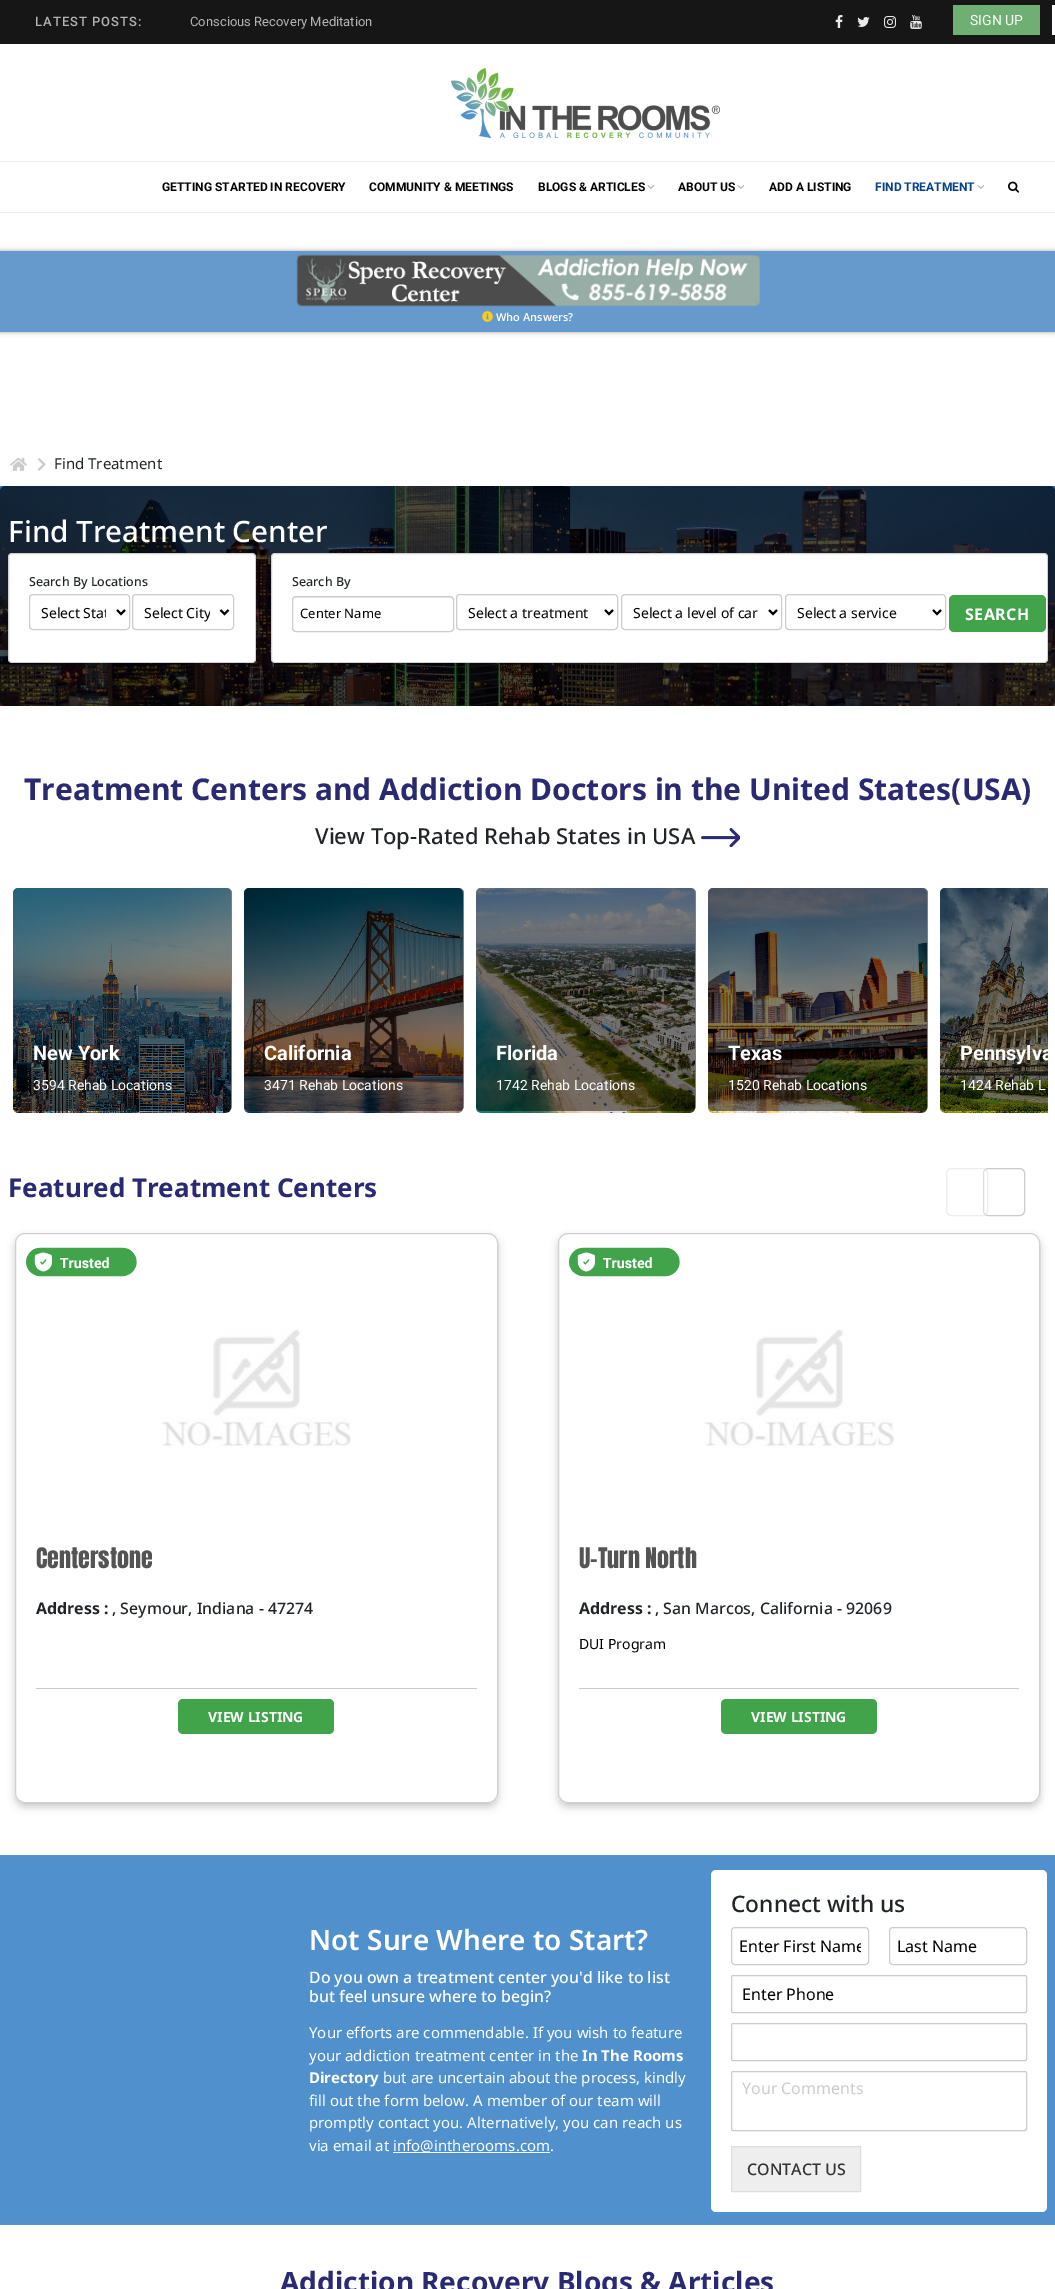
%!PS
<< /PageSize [1055 2289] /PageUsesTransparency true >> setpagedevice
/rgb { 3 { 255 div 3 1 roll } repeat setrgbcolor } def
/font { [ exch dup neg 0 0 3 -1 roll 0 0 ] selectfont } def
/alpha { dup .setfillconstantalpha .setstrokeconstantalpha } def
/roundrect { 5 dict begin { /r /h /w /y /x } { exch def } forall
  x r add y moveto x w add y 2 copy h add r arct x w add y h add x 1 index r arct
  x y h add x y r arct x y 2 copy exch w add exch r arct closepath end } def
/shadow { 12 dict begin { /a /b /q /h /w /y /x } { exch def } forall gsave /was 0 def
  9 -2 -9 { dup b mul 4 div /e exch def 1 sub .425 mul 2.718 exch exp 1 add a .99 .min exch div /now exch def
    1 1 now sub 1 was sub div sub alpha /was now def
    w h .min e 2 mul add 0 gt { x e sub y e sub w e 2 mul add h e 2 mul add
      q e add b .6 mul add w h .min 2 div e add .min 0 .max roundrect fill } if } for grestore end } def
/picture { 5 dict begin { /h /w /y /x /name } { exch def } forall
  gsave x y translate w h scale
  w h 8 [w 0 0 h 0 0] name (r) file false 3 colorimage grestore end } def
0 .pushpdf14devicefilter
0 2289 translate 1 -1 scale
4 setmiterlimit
255 255 255 rgb
0 0 1055 2289 rectfill
22 22 22 rgb
0 0 1055 44 rectfill
(img/1.rgb) 835 15 8 13 picture
(img/2.rgb) 857 17 13 10 picture
(img/3.rgb) 884 16 12 12 picture
(img/4.rgb) 910 15 12 14 picture
111 175 115 rgb
953 5 87 30 rectfill
255 255 255 rgb
1052 5 3 30 rectfill
(img/5.rgb) 451 68 269 70 picture
239 239 239 rgb
0 161 1055 1 rectfill
0 212 1055 1 rectfill
(img/6.rgb) 647 185 8 4 picture
(img/6.rgb) 737 185 8 4 picture
(img/6.rgb) 977 185 8 4 picture
(img/7.rgb) 1008 181 12 12 picture
59 39 39 rgb
0 251 1055 81 0 2.5 0.4 shadow
102 153 204 rgb
0 251 1055 81 rectfill
(img/8.rgb) 296 254 465 53 picture
(img/9.rgb) 482 311 11 11 picture
(img/10.rgb) 10 457 17 14 picture
(img/11.rgb) 37 458 9 13 picture
(img/12.rgb) 0 486 1055 220 picture
0 0 0 rgb
8 557 248 110 4 4 0.2 shadow
255 255 255 rgb
8 553 248 110 4 roundrect fill
0.18 alpha
0 0 0 rgb
8.5 553.5 247 109 3.5 roundrect stroke
1 alpha
204 204 204 rgb
29.5 594.5 100 35 3.5 roundrect stroke
0 0 0 rgb
2 setlinewidth
117 610 moveto 121 614 lineto 125 610 lineto stroke
204 204 204 rgb
1 setlinewidth
132.5 594.5 101 35 3.5 roundrect stroke
0 0 0 rgb
2 setlinewidth
220.5 610 moveto 224.5 614 lineto 228.5 610 lineto stroke
271 557 777 110 4 4 0.2 shadow
255 255 255 rgb
271 553 777 110 4 roundrect fill
0.18 alpha
0 0 0 rgb
1 setlinewidth
271.5 553.5 776 109 3.5 roundrect stroke
1 alpha
236 236 236 rgb
296 598 moveto 450 598 lineto 452 598 453 599 453 601 curveto 453 599 452 597 450 597 curveto 295 597 lineto 293 597 293 599 293 601 curveto 293 599 294 598 296 598 curveto closepath fill
204 204 204 rgb
292.5 596.5 161 35 3.5 roundrect stroke
456.5 594.5 161 35 3.5 roundrect stroke
0 0 0 rgb
2 setlinewidth
605 610 moveto 609 614 lineto 613 610 lineto stroke
204 204 204 rgb
1 setlinewidth
621.5 594.5 160 35 3.5 roundrect stroke
0 0 0 rgb
2 setlinewidth
769 610 moveto 773 614 lineto 777 610 lineto stroke
204 204 204 rgb
1 setlinewidth
785.5 594.5 160 35 3.5 roundrect stroke
0 0 0 rgb
2 setlinewidth
933 610 moveto 937 614 lineto 941 610 lineto stroke
65 164 75 rgb
949 595 97 37 5 roundrect fill
(img/13.rgb) 701 828 39 19 picture
(img/14.rgb) 13 888 218 225 picture
0.5 alpha
0 0 0 rgb
13 888 219 223 5 roundrect fill
1 alpha
(img/15.rgb) 244 888 219 225 picture
0.5 alpha
244 888 220 223 5 roundrect fill
1 alpha
(img/16.rgb) 476 888 219 225 picture
0.5 alpha
476 888 220 223 5 roundrect fill
1 alpha
(img/17.rgb) 708 888 219 225 picture
0.5 alpha
708 888 220 223 5 roundrect fill
1 alpha
(img/18.rgb) 940 888 108 225 picture
0.5 alpha
945 888 moveto 1048 888 lineto 1048 1111 lineto 945 1111 lineto 942 1111 940 1109 940 1106 curveto 940 893 lineto 940 890 942 888 945 888 curveto closepath fill
1 alpha
204 204 204 rgb
1 setlinewidth
983.5 1168.5 41 47 4.5 roundrect stroke
0.35 alpha
255 255 255 rgb
946 1168 42 48 5 roundrect fill
204 204 204 rgb
946.5 1168.5 41 47 4.5 roundrect stroke
1 alpha
0 0 0 rgb
15 1237 483 570 10 4 0.2 shadow
255 255 255 rgb
15 1233 483 570 10 roundrect fill
0.18 alpha
0 0 0 rgb
15.5 1233.5 482 569 9.5 roundrect stroke
1 alpha
(img/19.rgb) 26 1247 111 30 picture
(img/20.rgb) 161 1329 190 119 picture
200 201 202 rgb
36 1688 441 1 rectfill
65 164 75 rgb
178 1699 156 35 5 roundrect fill
0 0 0 rgb
558 1237 482 570 10 4 0.2 shadow
255 255 255 rgb
558 1233 482 570 10 roundrect fill
0.18 alpha
0 0 0 rgb
558.5 1233.5 481 569 9.5 roundrect stroke
1 alpha
(img/19.rgb) 569 1247 111 30 picture
(img/21.rgb) 704 1329 190 119 picture
200 201 202 rgb
579 1688 440 1 rectfill
65 164 75 rgb
721 1699 156 35 5 roundrect fill
80 145 205 rgb
0 1855 1055 370 rectfill
255 255 255 rgb
393 2152 157 1 rectfill
711 1870 336 342 5 roundrect fill
204 204 204 rgb
731.5 1927.5 137 37 3.5 roundrect stroke
889.5 1927.5 137 37 3.5 roundrect stroke
731.5 1975.5 295 37 1.5 roundrect stroke
731.5 2023.5 295 37 1.5 roundrect stroke
731.5 2071.5 295 59 1.5 roundrect stroke
238 238 238 rgb
731.5 2146.5 moveto 860.5 2146.5 lineto 860.5 2191.5 lineto 731.5 2191.5 lineto closepath gsave fill grestore
221 221 221 rgb
stroke
/Roboto-Medium 13 font
180 180 180 rgb
35 26 moveto 1 0 (LATEST POSTS:) ashow
/Roboto-Regular 13 font
190 26 moveto (Conscious Recovery Meditation) show
/Roboto-Regular 14 font
255 255 255 rgb
970 25 moveto (SIGN UP) show
/Roboto-Bold 12 font
0 0 0 rgb
[
  [(GETTING STARTED IN RECOVERY) 162 191]
  [(COMMUNITY & MEETINGS) 369 191]
  [(BLOGS & ARTICLES) 538 191]
  [(ABOUT US) 678 191]
  [(ADD A LISTING) 769 191]
] { aload pop moveto show } forall
4 64 142 rgb
875 191 moveto (FIND TREATMENT) show
/OpenSans-SemiBold 11 font
255 255 255 rgb
496 321 moveto (Who Answers?) show
/NotoSans-Regular 15 font
33 37 41 rgb
54 469 moveto (Find Treatment) show
/NotoSans-Medium 29.5 font
255 255 255 rgb
8 542 moveto (Find Treatment Center) show
/NotoSans-Medium 12.5 font
33 37 41 rgb
29 586 moveto (Search By Locations) show
gsave
41 602 65 21 rectclip
/NotoSans-Regular 14 font
0 0 0 rgb
41 618 moveto (Select Stat) show
grestore
gsave
144 602 66 21 rectclip
/NotoSans-Regular 14 font
0 0 0 rgb
144 618 moveto (Select City) show
grestore
292 586 moveto (Search By) show
/NotoSans-Regular 13 font
0 0 0 rgb
300 618 moveto (Center Name) show
/NotoSans-Regular 14 font
[
  [(Select a treatment) 468 618]
  [(Select a level of car) 633 618]
  [(Select a service) 797 618]
] { aload pop moveto show } forall
/NotoSans-Bold 16 font
255 255 255 rgb
965 620 moveto 0.5 0 (SEARCH) ashow
/NotoSans-Bold 30 font
42 42 114 rgb
24 800 moveto (Treatment Centers and Addiction Doctors in the United States\(USA\)) show
/NotoSans-Medium 22 font
33 37 41 rgb
315 844 moveto (View Top-Rated Rehab States in USA) show
/Roboto-Bold 20 font
255 255 255 rgb
33 1060 moveto (New York) show
/Roboto-Regular 14 font
33 1090 moveto (3594 Rehab Locations) show
/Roboto-Bold 20 font
264 1060 moveto (California) show
/Roboto-Regular 14 font
264 1090 moveto (3471 Rehab Locations) show
/Roboto-Bold 20 font
496 1060 moveto (Florida) show
/Roboto-Regular 14 font
496 1090 moveto (1742 Rehab Locations) show
/Roboto-Bold 20 font
728 1060 moveto (Texas) show
/Roboto-Regular 14 font
728 1090 moveto (1520 Rehab Locations) show
gsave
935 883 113 235 rectclip
/Roboto-Bold 20 font
960 1060 moveto (Pennsylva) show
grestore
960 1090 moveto (1424 Rehab L) show
/NotoSans-Bold 26 font
42 42 114 rgb
8 1197 moveto (Featured Treatment Centers) show
/Anton-Regular 24 font
84 84 84 rgb
36 1568 moveto (Centerstone) show
/NotoSans-Bold 15.9 font
33 37 41 rgb
36 1614 moveto (Address :) show
/NotoSans-Medium 15.9 font
112 1614 moveto (, Seymour, Indiana - 47274) show
/NotoSans-Bold 14 font
255 255 255 rgb
208 1722 moveto (VIEW LISTING) show
/Anton-Regular 24 font
84 84 84 rgb
579 1568 moveto (U-Turn North) show
/NotoSans-Bold 15.9 font
33 37 41 rgb
579 1614 moveto (Address :) show
/NotoSans-Medium 15.9 font
655 1614 moveto (, San Marcos, California - 92069) show
/NotoSans-Regular 14 font
0 0 0 rgb
579 1649 moveto (DUI Program) show
/NotoSans-Bold 14 font
255 255 255 rgb
751 1722 moveto (VIEW LISTING) show
/NotoSans-SemiBold 28 font
309 1950 moveto (Not Sure Where to Start?) show
/NotoSans-Medium 15.9 font
309 1983 moveto (Do you own a treatment center you'd like to list) show
309 2002 moveto (but feel unsure where to begin?) show
/NotoSans-Regular 15 font
309 2038 moveto (Your efforts are commendable. If you wish to feature) show
309 2061 moveto (your addiction treatment center in the) show
/NotoSans-Bold 15 font
582 2061 moveto (In The Rooms) show
309 2083 moveto (Directory) show
/NotoSans-Regular 15 font
[
  [(but are uncertain about the process, kindly) 383 2083]
  [(fill out the form below. A member of our team will) 309 2106]
  [(promptly contact you. Alternatively, you can reach us) 309 2128]
  [(via email at) 309 2151]
  [(info@intherooms.com.) 393 2151]
] { aload pop moveto show } forall
/NotoSans-Medium 22.75 font
33 37 41 rgb
731 1912 moveto (Connect with us) show
gsave
739 1935 122 22 rectclip
/NotoSans-Regular 16 font
0 0 0 rgb
739 1952 moveto (Enter First Name) show
grestore
/NotoSans-Regular 16 font
0 0 0 rgb
897 1952 moveto (Last Name) show
742 2000 moveto (Enter Phone) show
204 204 204 rgb
742 2094 moveto (Your Comments) show
/NotoSans-Medium 16 font
51 51 51 rgb
747 2175 moveto (CONTACT US) show
/NotoSans-Bold 28 font
42 42 114 rgb
280 2292 moveto (Addiction Recovery Blogs & Articles) show
.poppdf14devicefilter showpage
